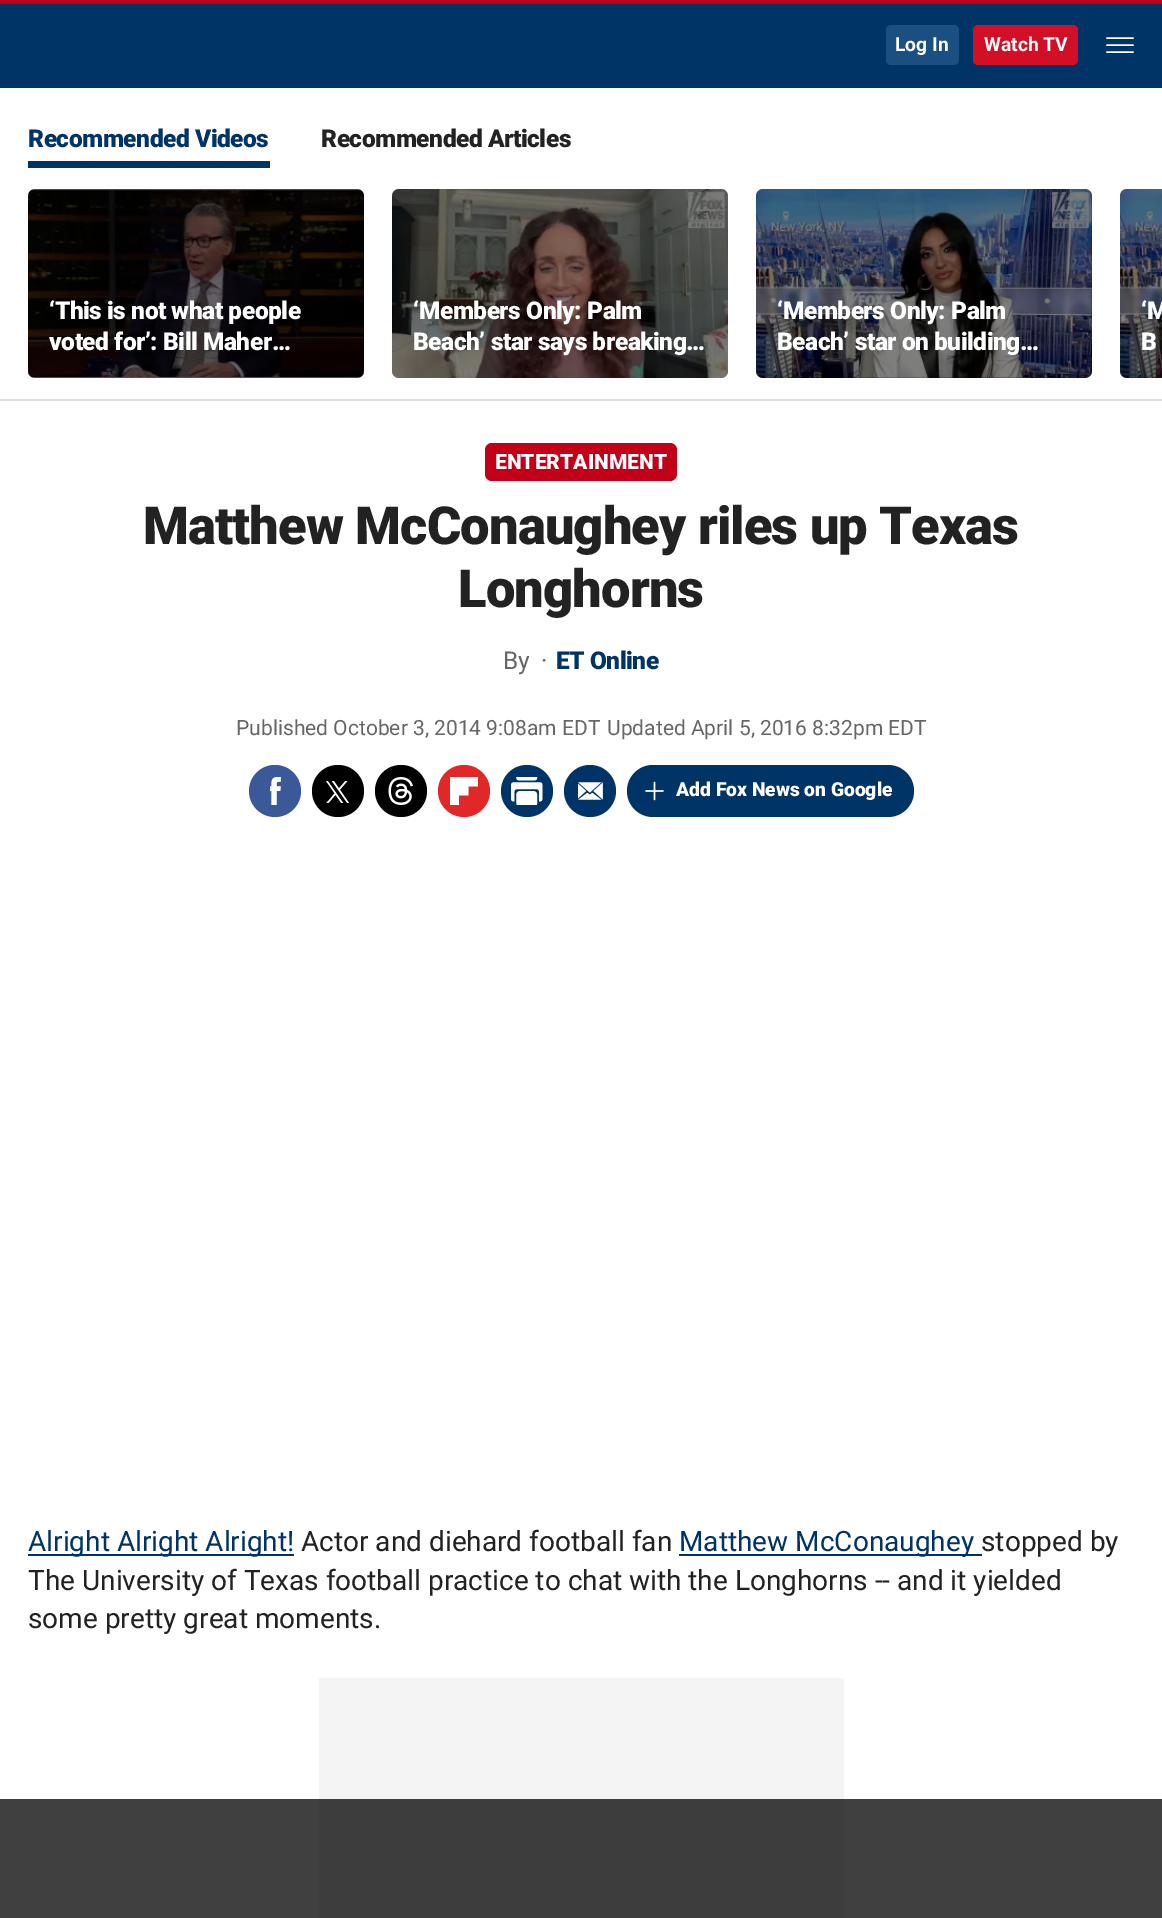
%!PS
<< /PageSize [1162 1918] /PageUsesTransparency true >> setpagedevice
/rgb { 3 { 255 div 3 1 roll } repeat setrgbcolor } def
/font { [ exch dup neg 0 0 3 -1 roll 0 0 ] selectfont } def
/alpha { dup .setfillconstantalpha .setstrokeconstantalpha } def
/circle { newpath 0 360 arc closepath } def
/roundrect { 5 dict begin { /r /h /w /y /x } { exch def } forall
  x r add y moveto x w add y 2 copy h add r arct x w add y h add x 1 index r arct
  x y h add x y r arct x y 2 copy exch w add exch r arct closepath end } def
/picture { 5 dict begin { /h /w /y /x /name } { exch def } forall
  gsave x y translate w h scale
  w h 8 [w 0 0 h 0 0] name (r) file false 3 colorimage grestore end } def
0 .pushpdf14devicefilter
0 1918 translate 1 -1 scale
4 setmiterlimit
255 255 255 rgb
0 0 1162 1918 rectfill
[
  [0 1799 1162 119 64 64 64]
  [0 4 1162 84 0 51 102]
  [0 0 1162 4 194 0 23]
] { aload pop rgb rectfill } forall
27 78 129 rgb
886 25 73 40 5 roundrect fill
210 15 38 rgb
973 25 105 40 5 roundrect fill
(img/1.rgb) 1106 37 28 16 picture
0 51 102 rgb
28 161 242 7 rectfill
221 221 221 rgb
0 399 1162 2 rectfill
(img/2.rgb) 28 189 336 189 picture
0.5 alpha
0 0 0 rgb
28 189 336 189 7 roundrect fill
1 alpha
(img/3.rgb) 392 189 336 189 picture
0.5 alpha
392 189 336 189 7 roundrect fill
1 alpha
(img/4.rgb) 756 189 336 189 picture
0.5 alpha
756 189 336 189 7 roundrect fill
1 alpha
(img/5.rgb) 1120 189 42 189 picture
0.5 alpha
1127 189 moveto 1162 189 lineto 1162 378 lineto 1127 378 lineto 1123 378 1120 375 1120 371 curveto 1120 196 lineto 1120 192 1123 189 1127 189 curveto closepath fill
1 alpha
194 0 23 rgb
485 443 192 38 7 roundrect fill
59 89 152 rgb
275 791 26 circle fill
(img/6.rgb) 270 777 11 28 picture
0 0 0 rgb
338 791 26 circle fill
(img/7.rgb) 326 781 24 22 picture
401 791 26 circle fill
(img/8.rgb) 388 777 25 28 picture
225 40 40 rgb
464 791 26 circle fill
255 255 255 rgb
459 777 moveto 450 777 lineto 450 805 lineto 459 805 lineto 459 795.5 lineto 468.5 795.5 lineto 468.5 786.5 lineto 478 786.5 lineto 478 777 lineto closepath fill
0 51 102 rgb
527 791 26 circle fill
(img/9.rgb) 511 777 32 28 picture
590 791 26 circle fill
(img/10.rgb) 578 782 25 18 picture
627 765 287 52 26 roundrect fill
(img/11.rgb) 645 781 19 20 picture
[
  [28 1554 266 2 0 51 102]
  [679 1554 303 2 0 51 102]
  [319 1678 525 121 244 244 244]
  [319 1799 525 119 61 61 61]
] { aload pop rgb rectfill } forall
/Roboto-Bold 19.25 font
255 255 255 rgb
895 51 moveto (Log In) show
984 51 moveto (Watch TV) show
/Roboto-Black 24.5 font
0 51 102 rgb
28 147 moveto -0.45 0 (Recommended Videos) ashow
34 34 34 rgb
321 147 moveto -0.45 0 (Recommended Articles) ashow
255 255 255 rgb
49 319 moveto -0.45 0 (‘This is not what people) ashow
49 350 moveto -0.45 0 (voted for’: Bill Maher…) ashow
413 319 moveto -0.45 0 (‘Members Only: Palm) ashow
413 350 moveto -0.45 0 (Beach’ star says breaking…) ashow
777 319 moveto -0.45 0 (‘Members Only: Palm) ashow
777 350 moveto -0.45 0 (Beach’ star on building…) ashow
1141 319 moveto -0.45 0 (‘M) ashow
1141 350 moveto -0.45 0 (B) ashow
/Roboto-Black 21 font
495 469 moveto (ENTERTAINMENT) show
/Roboto-Black 52.5 font
34 34 34 rgb
143 544 moveto -0.9 0 (Matthew McConaughey riles up Texas) ashow
458 607 moveto -0.9 0 (Longhorns) ashow
/Roboto-Regular 24.5 font
102 102 102 rgb
503 669 moveto (By) show
541 669 moveto (·) show
/Roboto-Black 24.5 font
0 51 102 rgb
556 669 moveto -0.45 0 (ET Online) ashow
/Roboto-Regular 21 font
102 102 102 rgb
236 735 moveto (Published October 3, 2014 9:08am EDT) show
607 735 moveto (Updated April 5, 2016 8:32pm EDT) show
/Roboto-Black 19.25 font
255 255 255 rgb
676 796 moveto (Add Fox News on Google) show
/Roboto-Regular 28 font
0 51 102 rgb
28 1551 moveto (Alright Alright Alright!) show
34 34 34 rgb
301 1551 moveto (Actor and diehard football fan) show
0 51 102 rgb
679 1551 moveto (Matthew McConaughey) show
34 34 34 rgb
[
  [(stopped by) 981 1551]
  [(The University of Texas football practice to chat with the Longhorns -- and it yielded) 28 1590]
  [(some pretty great moments.) 28 1628]
] { aload pop moveto show } forall
.poppdf14devicefilter showpage
